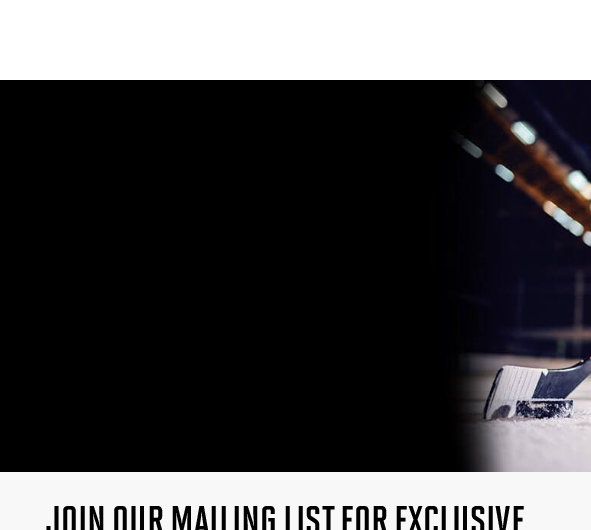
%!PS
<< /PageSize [591 530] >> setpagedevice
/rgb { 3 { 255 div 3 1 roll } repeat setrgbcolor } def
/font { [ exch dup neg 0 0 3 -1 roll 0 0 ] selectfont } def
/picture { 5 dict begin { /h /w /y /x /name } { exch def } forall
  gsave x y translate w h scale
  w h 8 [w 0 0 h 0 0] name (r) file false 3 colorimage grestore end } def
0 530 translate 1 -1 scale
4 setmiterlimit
255 255 255 rgb
0 0 591 530 rectfill
(img/1.rgb) 0 80 591 392 picture
248 248 248 rgb
0 472 591 58 rectfill
/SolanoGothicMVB-Bold 40 font
0 0 0 rgb
46 534 moveto (JOIN OUR MAILING LIST FOR EXCLUSIVE) show
showpage
